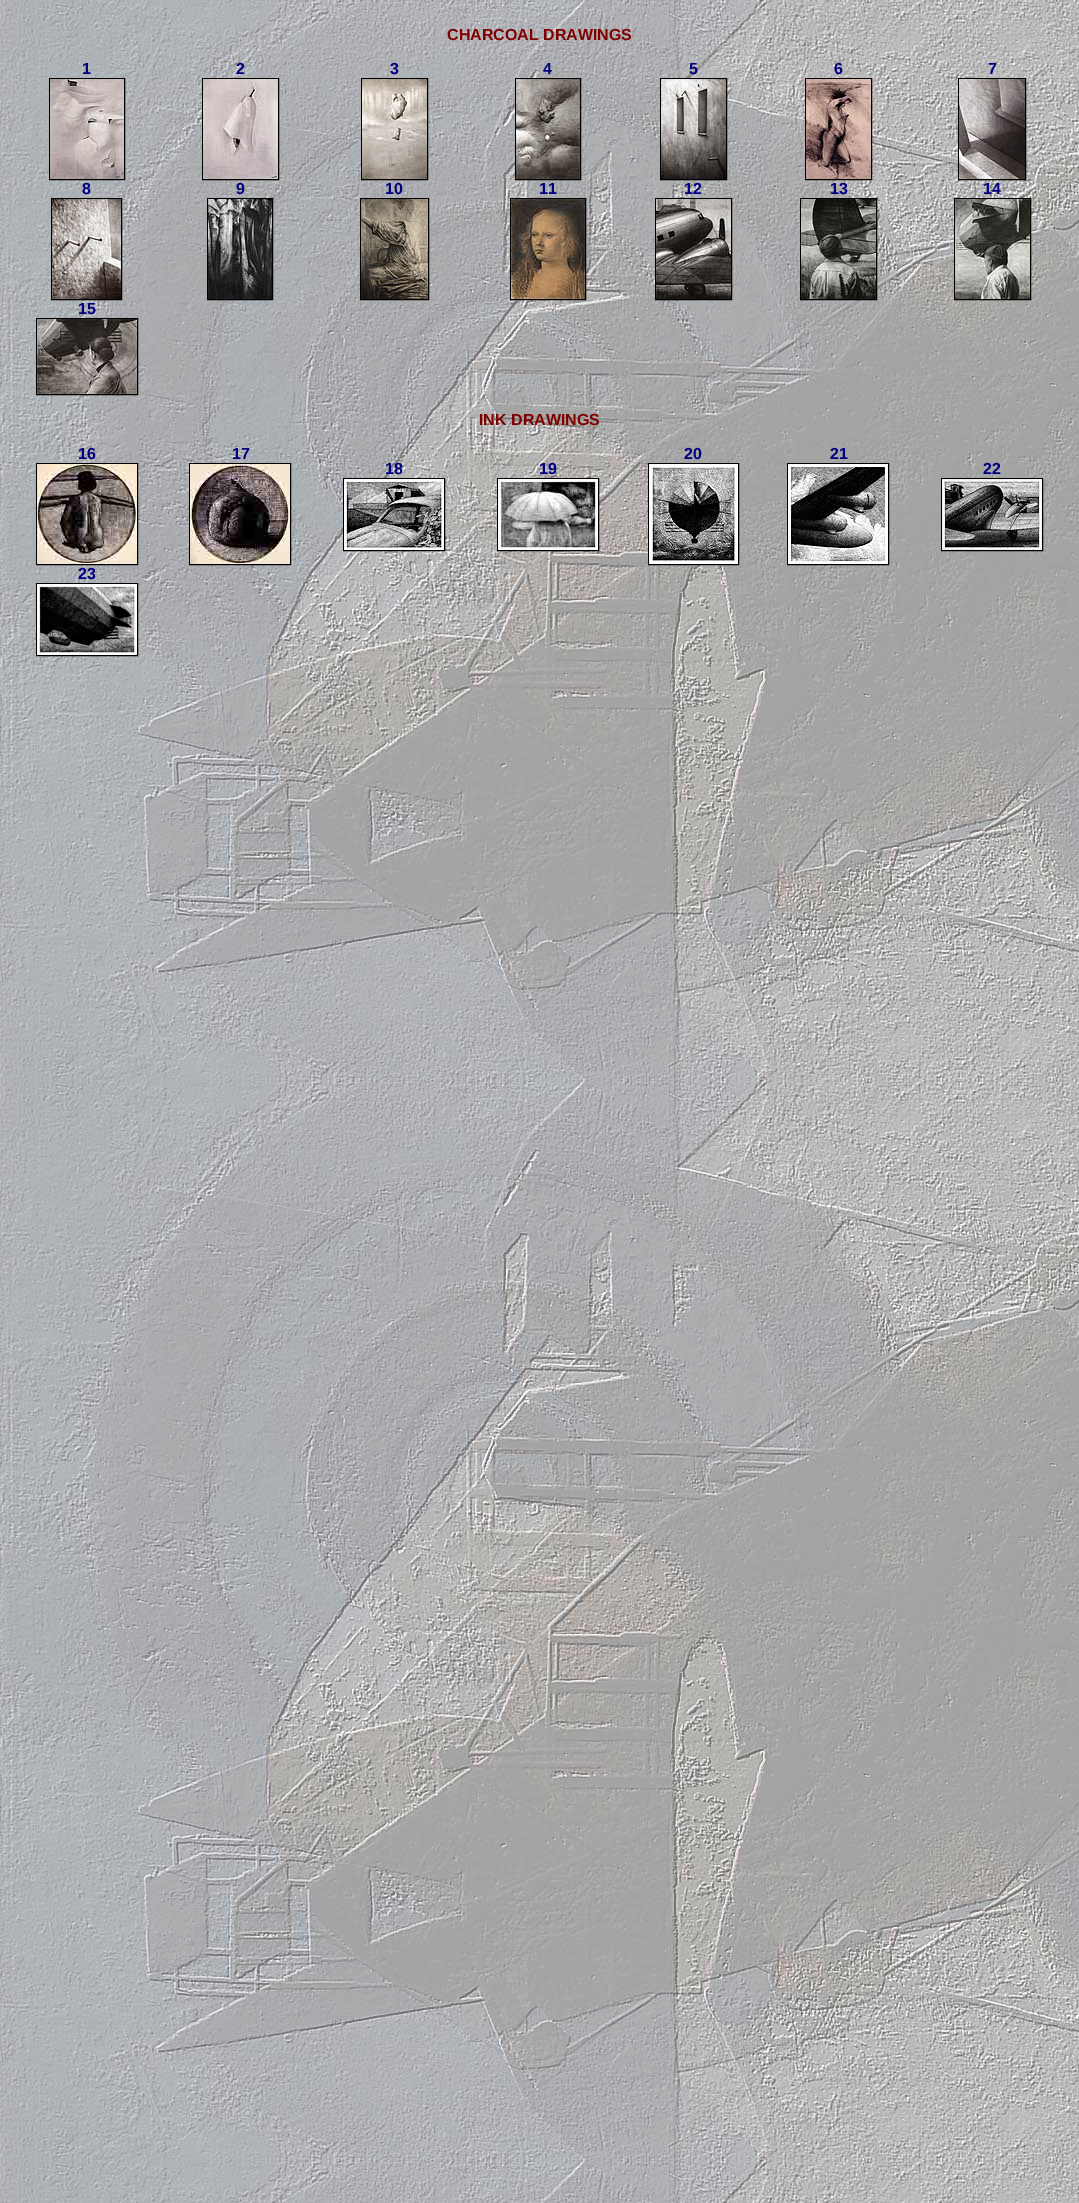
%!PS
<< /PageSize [1079 2203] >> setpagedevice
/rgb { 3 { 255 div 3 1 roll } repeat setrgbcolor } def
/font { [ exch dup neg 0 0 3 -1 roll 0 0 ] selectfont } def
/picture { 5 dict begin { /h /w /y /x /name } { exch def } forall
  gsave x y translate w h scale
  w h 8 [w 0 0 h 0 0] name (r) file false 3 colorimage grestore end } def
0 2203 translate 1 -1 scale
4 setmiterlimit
255 255 255 rgb
0 0 1079 2203 rectfill
(img/1.rgb) 0 0 1079 2203 picture
0 0 0 rgb
49.5 78.5 75 101 rectstroke
(img/2.rgb) 50 79 74 100 picture
202.5 78.5 76 101 rectstroke
(img/3.rgb) 203 79 75 100 picture
361.5 78.5 66 101 rectstroke
(img/4.rgb) 362 79 65 100 picture
515.5 78.5 65 101 rectstroke
(img/5.rgb) 516 79 64 100 picture
660.5 78.5 66 101 rectstroke
(img/6.rgb) 661 79 65 100 picture
805.5 78.5 66 101 rectstroke
(img/7.rgb) 806 79 65 100 picture
958.5 78.5 67 101 rectstroke
(img/8.rgb) 959 79 66 100 picture
51.5 198.5 70 101 rectstroke
(img/9.rgb) 52 199 69 100 picture
207.5 198.5 65 101 rectstroke
(img/10.rgb) 208 199 64 100 picture
360.5 198.5 68 101 rectstroke
(img/11.rgb) 361 199 67 100 picture
510.5 198.5 75 101 rectstroke
(img/12.rgb) 511 199 74 100 picture
655.5 198.5 76 101 rectstroke
(img/13.rgb) 656 199 75 100 picture
800.5 198.5 76 101 rectstroke
(img/14.rgb) 801 199 75 100 picture
954.5 198.5 76 101 rectstroke
(img/15.rgb) 955 199 75 100 picture
36.5 318.5 101 76 rectstroke
(img/16.rgb) 37 319 100 75 picture
36.5 463.5 101 101 rectstroke
(img/17.rgb) 37 464 100 100 picture
189.5 463.5 101 101 rectstroke
(img/18.rgb) 190 464 100 100 picture
648.5 463.5 90 101 rectstroke
(img/19.rgb) 649 464 89 100 picture
787.5 463.5 101 101 rectstroke
(img/20.rgb) 788 464 100 100 picture
343.5 478.5 101 72 rectstroke
(img/21.rgb) 344 479 100 71 picture
497.5 478.5 101 72 rectstroke
(img/22.rgb) 498 479 100 71 picture
941.5 478.5 101 72 rectstroke
(img/23.rgb) 942 479 100 71 picture
36.5 583.5 101 72 rectstroke
(img/24.rgb) 37 584 100 71 picture
/LiberationSans-Bold 16 font
128 0 0 rgb
447 40 moveto (CHARCOAL DRAWINGS) show
0 0 128 rgb
[
  [(1) 82 74]
  [(2) 236 74]
  [(3) 390 74]
  [(4) 543 74]
  [(5) 689 74]
  [(6) 834 74]
  [(7) 988 74]
  [(8) 82 194]
  [(9) 236 194]
  [(10) 385 194]
  [(11) 539 194]
  [(12) 684 194]
  [(13) 830 194]
  [(14) 983 194]
  [(15) 78 314]
] { aload pop moveto show } forall
128 0 0 rgb
479 425 moveto (INK DRAWINGS) show
0 0 128 rgb
[
  [(16) 78 459]
  [(17) 232 459]
  [(20) 684 459]
  [(21) 830 459]
  [(18) 385 474]
  [(19) 539 474]
  [(22) 983 474]
  [(23) 78 579]
] { aload pop moveto show } forall
showpage
